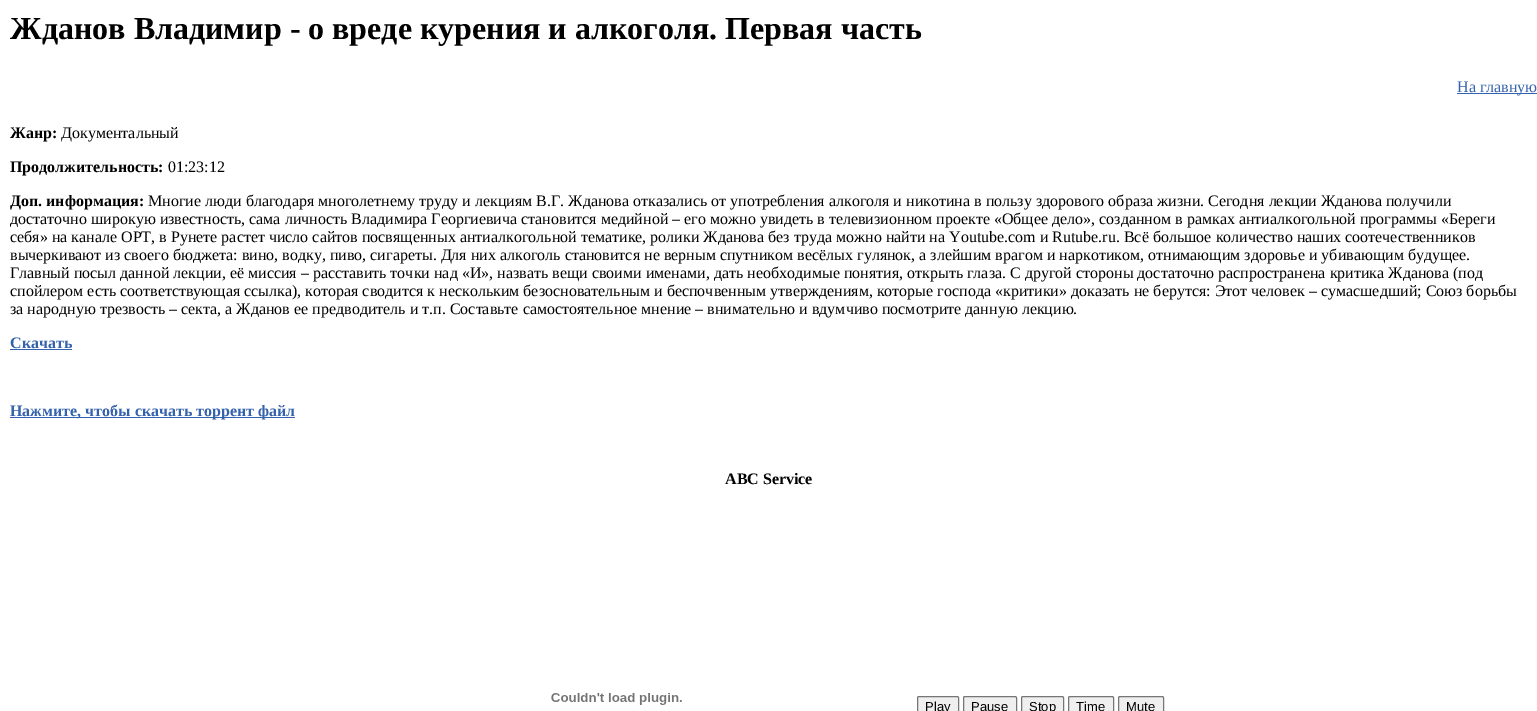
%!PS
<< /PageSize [1537 711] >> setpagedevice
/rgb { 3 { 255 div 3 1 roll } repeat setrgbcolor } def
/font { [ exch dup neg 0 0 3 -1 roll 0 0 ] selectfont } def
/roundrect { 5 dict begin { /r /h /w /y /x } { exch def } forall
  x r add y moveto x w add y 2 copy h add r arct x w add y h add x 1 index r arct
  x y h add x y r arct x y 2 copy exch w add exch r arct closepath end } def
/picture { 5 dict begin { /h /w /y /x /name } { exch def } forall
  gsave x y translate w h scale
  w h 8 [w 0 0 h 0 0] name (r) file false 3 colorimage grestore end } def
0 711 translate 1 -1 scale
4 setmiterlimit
255 255 255 rgb
0 0 1537 711 rectfill
[
  [1457 93 80 1 52 98 173]
  [10 349 62 1 52 98 173]
  [10 417 285 1 52 98 173]
] { aload pop rgb rectfill } forall
(img/1.rgb) 551 693 131 12 picture
239 239 239 rgb
917.5 696.5 41 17 1.5 roundrect gsave fill grestore
118 118 118 rgb
stroke
239 239 239 rgb
963.5 696.5 53 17 1.5 roundrect gsave fill grestore
118 118 118 rgb
stroke
239 239 239 rgb
1021.5 696.5 42 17 1.5 roundrect gsave fill grestore
118 118 118 rgb
stroke
239 239 239 rgb
1068.5 696.5 45 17 1.5 roundrect gsave fill grestore
118 118 118 rgb
stroke
239 239 239 rgb
1118.5 696.5 45 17 1.5 roundrect gsave fill grestore
118 118 118 rgb
stroke
/LiberationSerif-Bold 32 font
0 0 0 rgb
10 39 moveto (Жданов Владимир - о вреде курения и алкоголя. Первая часть) show
/LiberationSerif-Regular 16 font
52 98 173 rgb
1457 92 moveto (На главную) show
/LiberationSerif-Bold 16 font
0 0 0 rgb
10 138 moveto (Жанр:) show
/LiberationSerif-Regular 16 font
61 138 moveto (Документальный) show
/LiberationSerif-Bold 16 font
10 172 moveto (Продолжительность:) show
/LiberationSerif-Regular 16 font
168 172 moveto (01:23:12) show
/LiberationSerif-Bold 16 font
10 206 moveto (Доп. информация:) show
/LiberationSerif-Regular 16 font
[
  [(Многие люди благодаря многолетнему труду и лекциям В.Г. Жданова отказались от употребления алкоголя и никотина в пользу здорового образа жизни. Сегодня лекции Жданова получили) 148 206]
  [(достаточно широкую известность, сама личность Владимира Георгиевича становится медийной – его можно увидеть в телевизионном проекте «Общее дело», созданном в рамках антиалкогольной программы «Береги) 10 224]
  [(себя» на канале ОРТ, в Рунете растет число сайтов посвященных антиалкогольной тематике, ролики Жданова без труда можно найти на Youtube.com и Rutube.ru. Всё большое количество наших соотечественников) 10 242]
  [(вычеркивают из своего бюджета: вино, водку, пиво, сигареты. Для них алкоголь становится не верным спутником весёлых гулянок, а злейшим врагом и наркотиком, отнимающим здоровье и убивающим будущее.) 10 260]
  [(Главный посыл данной лекции, её миссия – расставить точки над «И», назвать вещи своими именами, дать необходимые понятия, открыть глаза. С другой стороны достаточно распространена критика Жданова \(под) 10 278]
  [(спойлером есть соответствующая ссылка\), которая сводится к нескольким безосновательным и беспочвенным утверждениям, которые господа «критики» доказать не берутся: Этот человек – сумасшедший; Союз борьбы) 10 296]
  [(за народную трезвость – секта, а Жданов ее предводитель и т.п. Составьте самостоятельное мнение – внимательно и вдумчиво посмотрите данную лекцию.) 10 314]
] { aload pop moveto show } forall
/LiberationSerif-Bold 16 font
52 98 173 rgb
10 348 moveto (Скачать) show
10 416 moveto (Нажмите, чтобы скачать торрент файл) show
0 0 0 rgb
725 484 moveto (ABC Service) show
/LiberationSans-Regular 13 font
[
  [(Play) 925 711]
  [(Pause) 971 711]
  [(Stop) 1029 711]
  [(Time) 1076 711]
  [(Mute) 1126 711]
] { aload pop moveto show } forall
showpage
